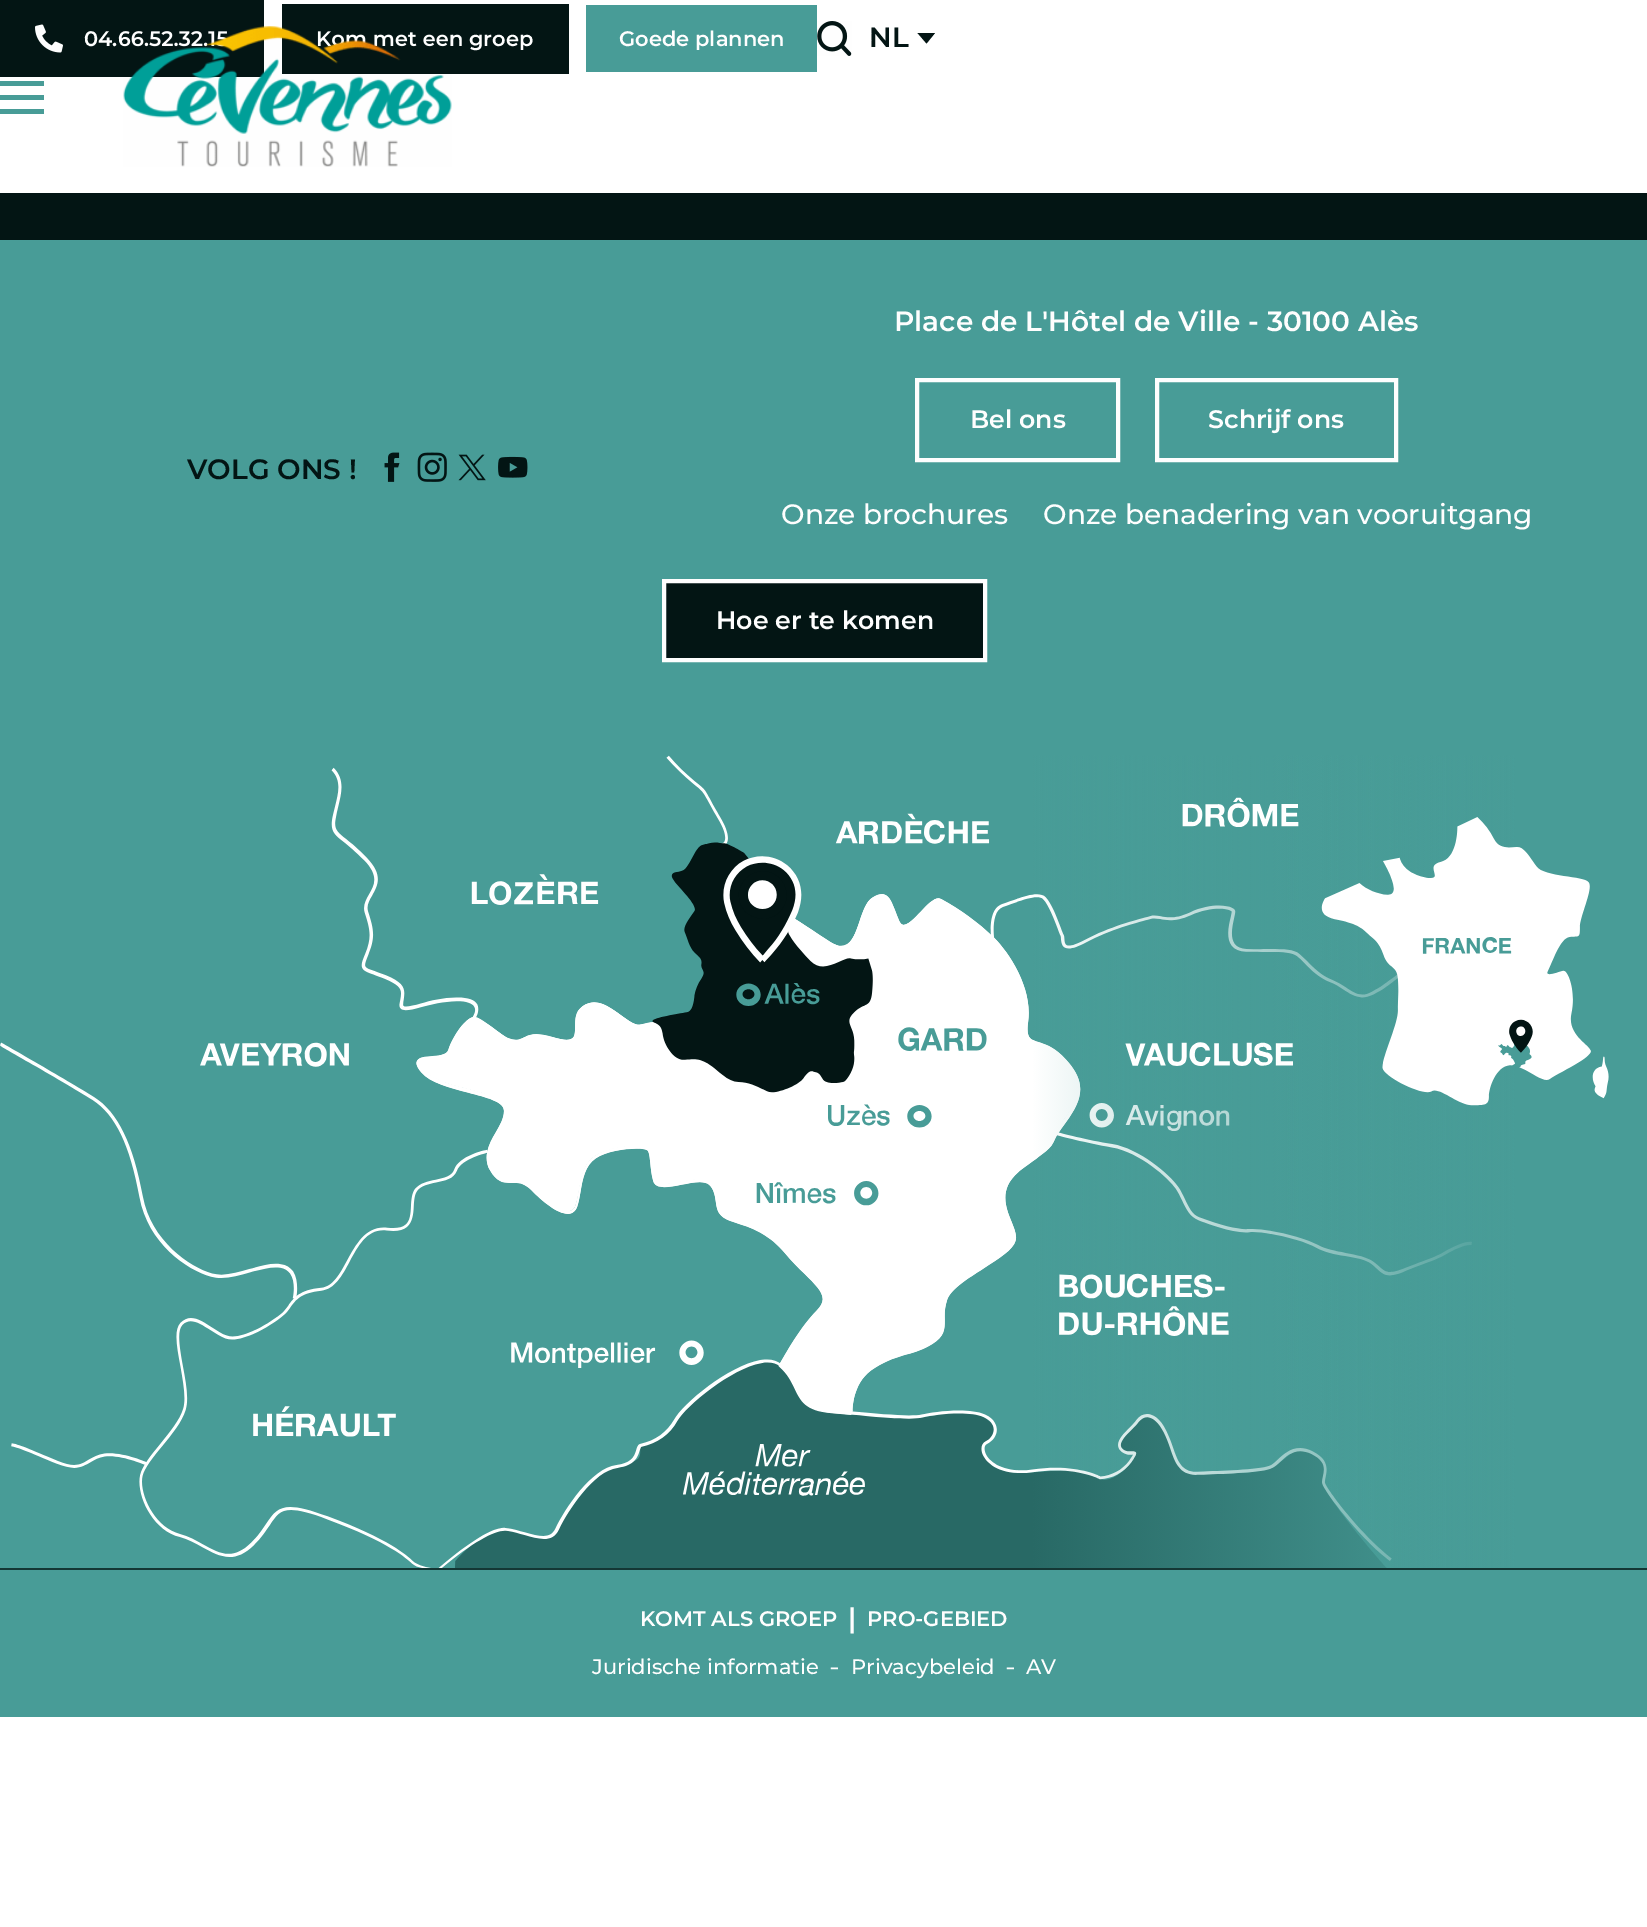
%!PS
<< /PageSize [1647 1927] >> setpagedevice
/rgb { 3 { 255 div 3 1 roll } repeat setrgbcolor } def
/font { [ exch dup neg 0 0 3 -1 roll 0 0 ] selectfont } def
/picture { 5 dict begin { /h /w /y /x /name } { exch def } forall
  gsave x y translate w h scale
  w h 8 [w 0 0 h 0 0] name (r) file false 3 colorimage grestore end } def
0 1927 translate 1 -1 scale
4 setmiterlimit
255 255 255 rgb
0 0 1647 1927 rectfill
[
  [0 81 44 5 72 156 151]
  [0 95 44 5 72 156 151]
  [0 109 44 5 72 156 151]
  [0 0 264 77 3 21 20]
] { aload pop rgb rectfill } forall
(img/2.rgb) 35 24 28 29 picture
282 4 287 70 rectfill
72 156 151 rgb
586 5 231 67 rectfill
(img/3.rgb) 817 21 35 35 picture
3 21 20 rgb
917.5 33 moveto 935 33 lineto 926.5 43.5 lineto closepath fill
72 156 151 rgb
0 240 1647 1477 rectfill
3 21 20 rgb
0 193 1647 47 rectfill
(img/4.rgb) 384 452 16 30 picture
(img/5.rgb) 417 452 30 30 picture
(img/6.rgb) 458 454 28 27 picture
(img/7.rgb) 498 456 30 22 picture
254 254 254 rgb
4 setlinewidth
917 380 201 80 rectstroke
1157 380 239 80 rectstroke
3 21 20 rgb
664 581 moveto 985 581 lineto 985 660 lineto 664 660 lineto closepath gsave fill grestore
254 254 254 rgb
stroke
(img/8.rgb) 0 755 1609 813 picture
20 55 53 rgb
0 1568 1647 2 rectfill
/Montserrat-SemiBold 21 font
254 254 254 rgb
84 46 moveto (04.66.52.32.15) show
316 46 moveto (Kom met een groep) show
(img/1.rgb) 123 26 329 141 picture
619 46 moveto (Goede plannen) show
/Montserrat-SemiBold 28 font
3 21 20 rgb
869 47 moveto (NL) show
187 479 moveto (VOLG ONS !) show
254 254 254 rgb
894 331 moveto (Place de L'Hôtel de Ville - 30100 Alès) show
/Montserrat-SemiBold 25.25 font
970 428 moveto (Bel ons) show
1208 428 moveto (Schrijf ons) show
/Montserrat-Medium 28 font
781 524 moveto (Onze brochures) show
1043 524 moveto (Onze benadering van vooruitgang) show
/Montserrat-SemiBold 25.25 font
716 629 moveto (Hoe er te komen) show
/Montserrat-SemiBold 21 font
640 1626 moveto (KOMT ALS GROEP) show
/Montserrat-SemiBold 28 font
848 1628 moveto (|) show
/Montserrat-SemiBold 21 font
867 1626 moveto (PRO-GEBIED) show
/Montserrat-Medium 21 font
592 1674 moveto (Juridische informatie) show
/Montserrat-Regular 28 font
829 1676 moveto (-) show
/Montserrat-Medium 21 font
851 1674 moveto (Privacybeleid) show
/Montserrat-Regular 28 font
1005 1676 moveto (-) show
/Montserrat-Medium 21 font
1026 1674 moveto (AV) show
showpage
